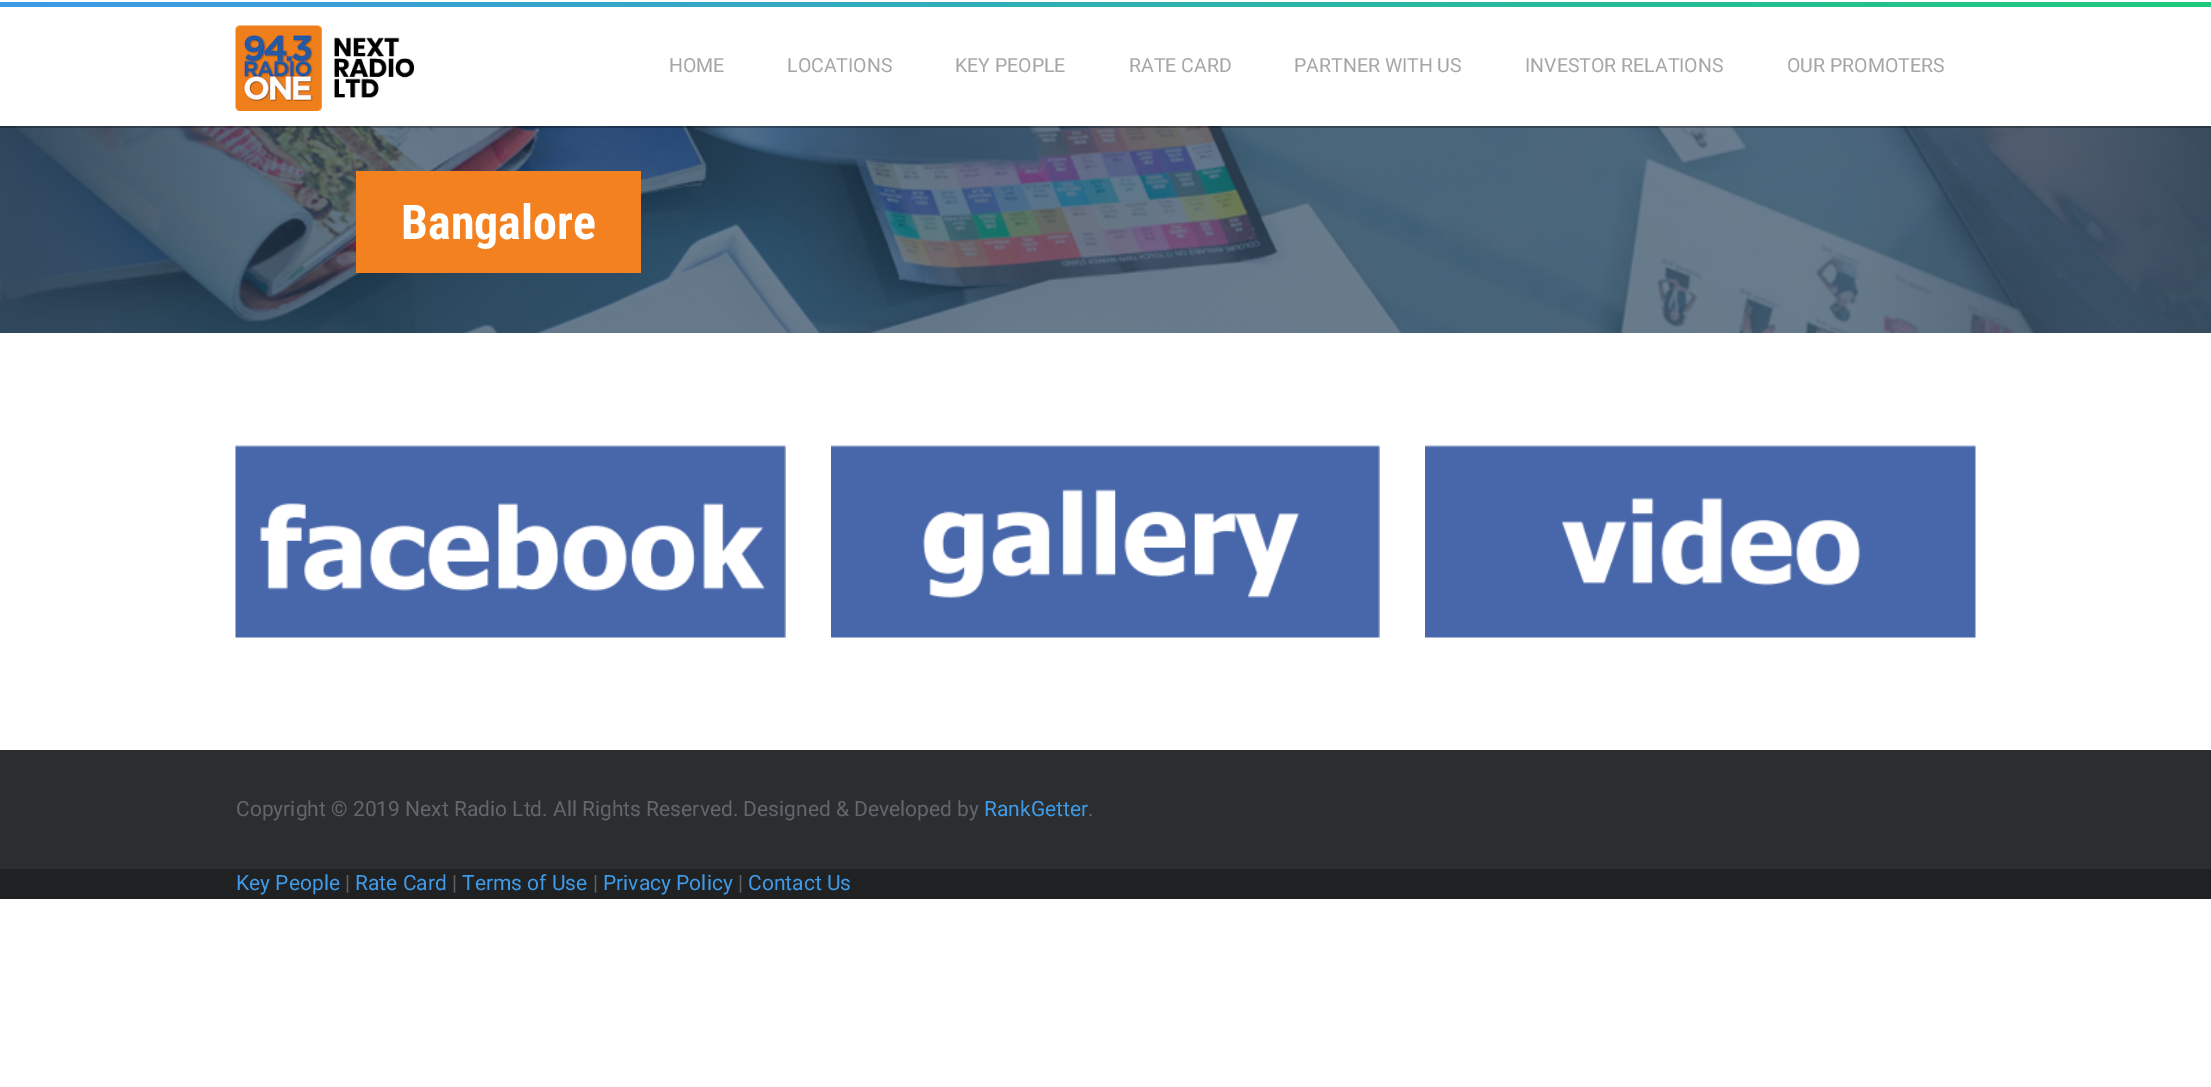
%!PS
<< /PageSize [2211 1087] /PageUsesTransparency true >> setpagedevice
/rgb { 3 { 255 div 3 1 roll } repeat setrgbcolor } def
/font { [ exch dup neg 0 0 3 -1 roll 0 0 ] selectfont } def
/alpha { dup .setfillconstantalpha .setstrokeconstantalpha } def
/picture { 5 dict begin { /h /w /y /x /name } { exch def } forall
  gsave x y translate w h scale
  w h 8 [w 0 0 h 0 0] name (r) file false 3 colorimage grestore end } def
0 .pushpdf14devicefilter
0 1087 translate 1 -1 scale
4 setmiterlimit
255 255 255 rgb
0 0 2211 1087 rectfill
(img/2.rgb) 0 126 2211 207 picture
0.3 alpha
0 0 0 rgb
0 126 2211 2 rectfill
1 alpha
gsave 0 2 moveto 2211 2 lineto 2211 7 lineto 0 7 lineto closepath clip newpath
<< /ShadingType 2 /ColorSpace /DeviceRGB /Coords [0 3.8 2211 3.7] /Extend [true true] /Function << /FunctionType 2 /Domain [0 1] /C0 [0.247 0.6 0.91] /C1 [0.118 0.788 0.486] /N 1 >> >> shfill grestore
(img/1.rgb) 235 25 179 86 picture
244 129 32 rgb
356 171 285 102 rectfill
(img/3.rgb) 235 445 551 193 picture
(img/4.rgb) 831 445 549 193 picture
(img/5.rgb) 1425 445 551 193 picture
43 45 47 rgb
0 750 2211 119 rectfill
32 33 35 rgb
0 869 2211 30 rectfill
/Roboto-Regular 19.5 font
166 166 166 rgb
[
  [(HOME) 669 72]
  [(LOCATIONS) 787 72]
  [(KEY PEOPLE) 955 72]
  [(RATE CARD) 1129 72]
  [(PARTNER WITH US) 1294 72]
  [(INVESTOR RELATIONS) 1525 72]
  [(OUR PROMOTERS) 1787 72]
] { aload pop moveto show } forall
/RobotoCondensed-Bold 48 font
255 255 255 rgb
401 239 moveto (Bangalore) show
/Roboto-Regular 21 font
98 103 109 rgb
236 816 moveto (Copyright © 2019 Next Radio Ltd. All Rights Reserved. Designed & Developed by) show
63 154 232 rgb
984 816 moveto (RankGetter) show
98 103 109 rgb
1088 816 moveto (.) show
63 154 232 rgb
236 890 moveto (Key People) show
96 96 96 rgb
345 890 moveto (|) show
63 154 232 rgb
355 890 moveto (Rate Card) show
96 96 96 rgb
452 890 moveto (|) show
63 154 232 rgb
462 890 moveto (Terms of Use) show
96 96 96 rgb
593 890 moveto (|) show
63 154 232 rgb
603 890 moveto (Privacy Policy) show
96 96 96 rgb
738 890 moveto (|) show
63 154 232 rgb
748 890 moveto (Contact Us) show
.poppdf14devicefilter showpage
